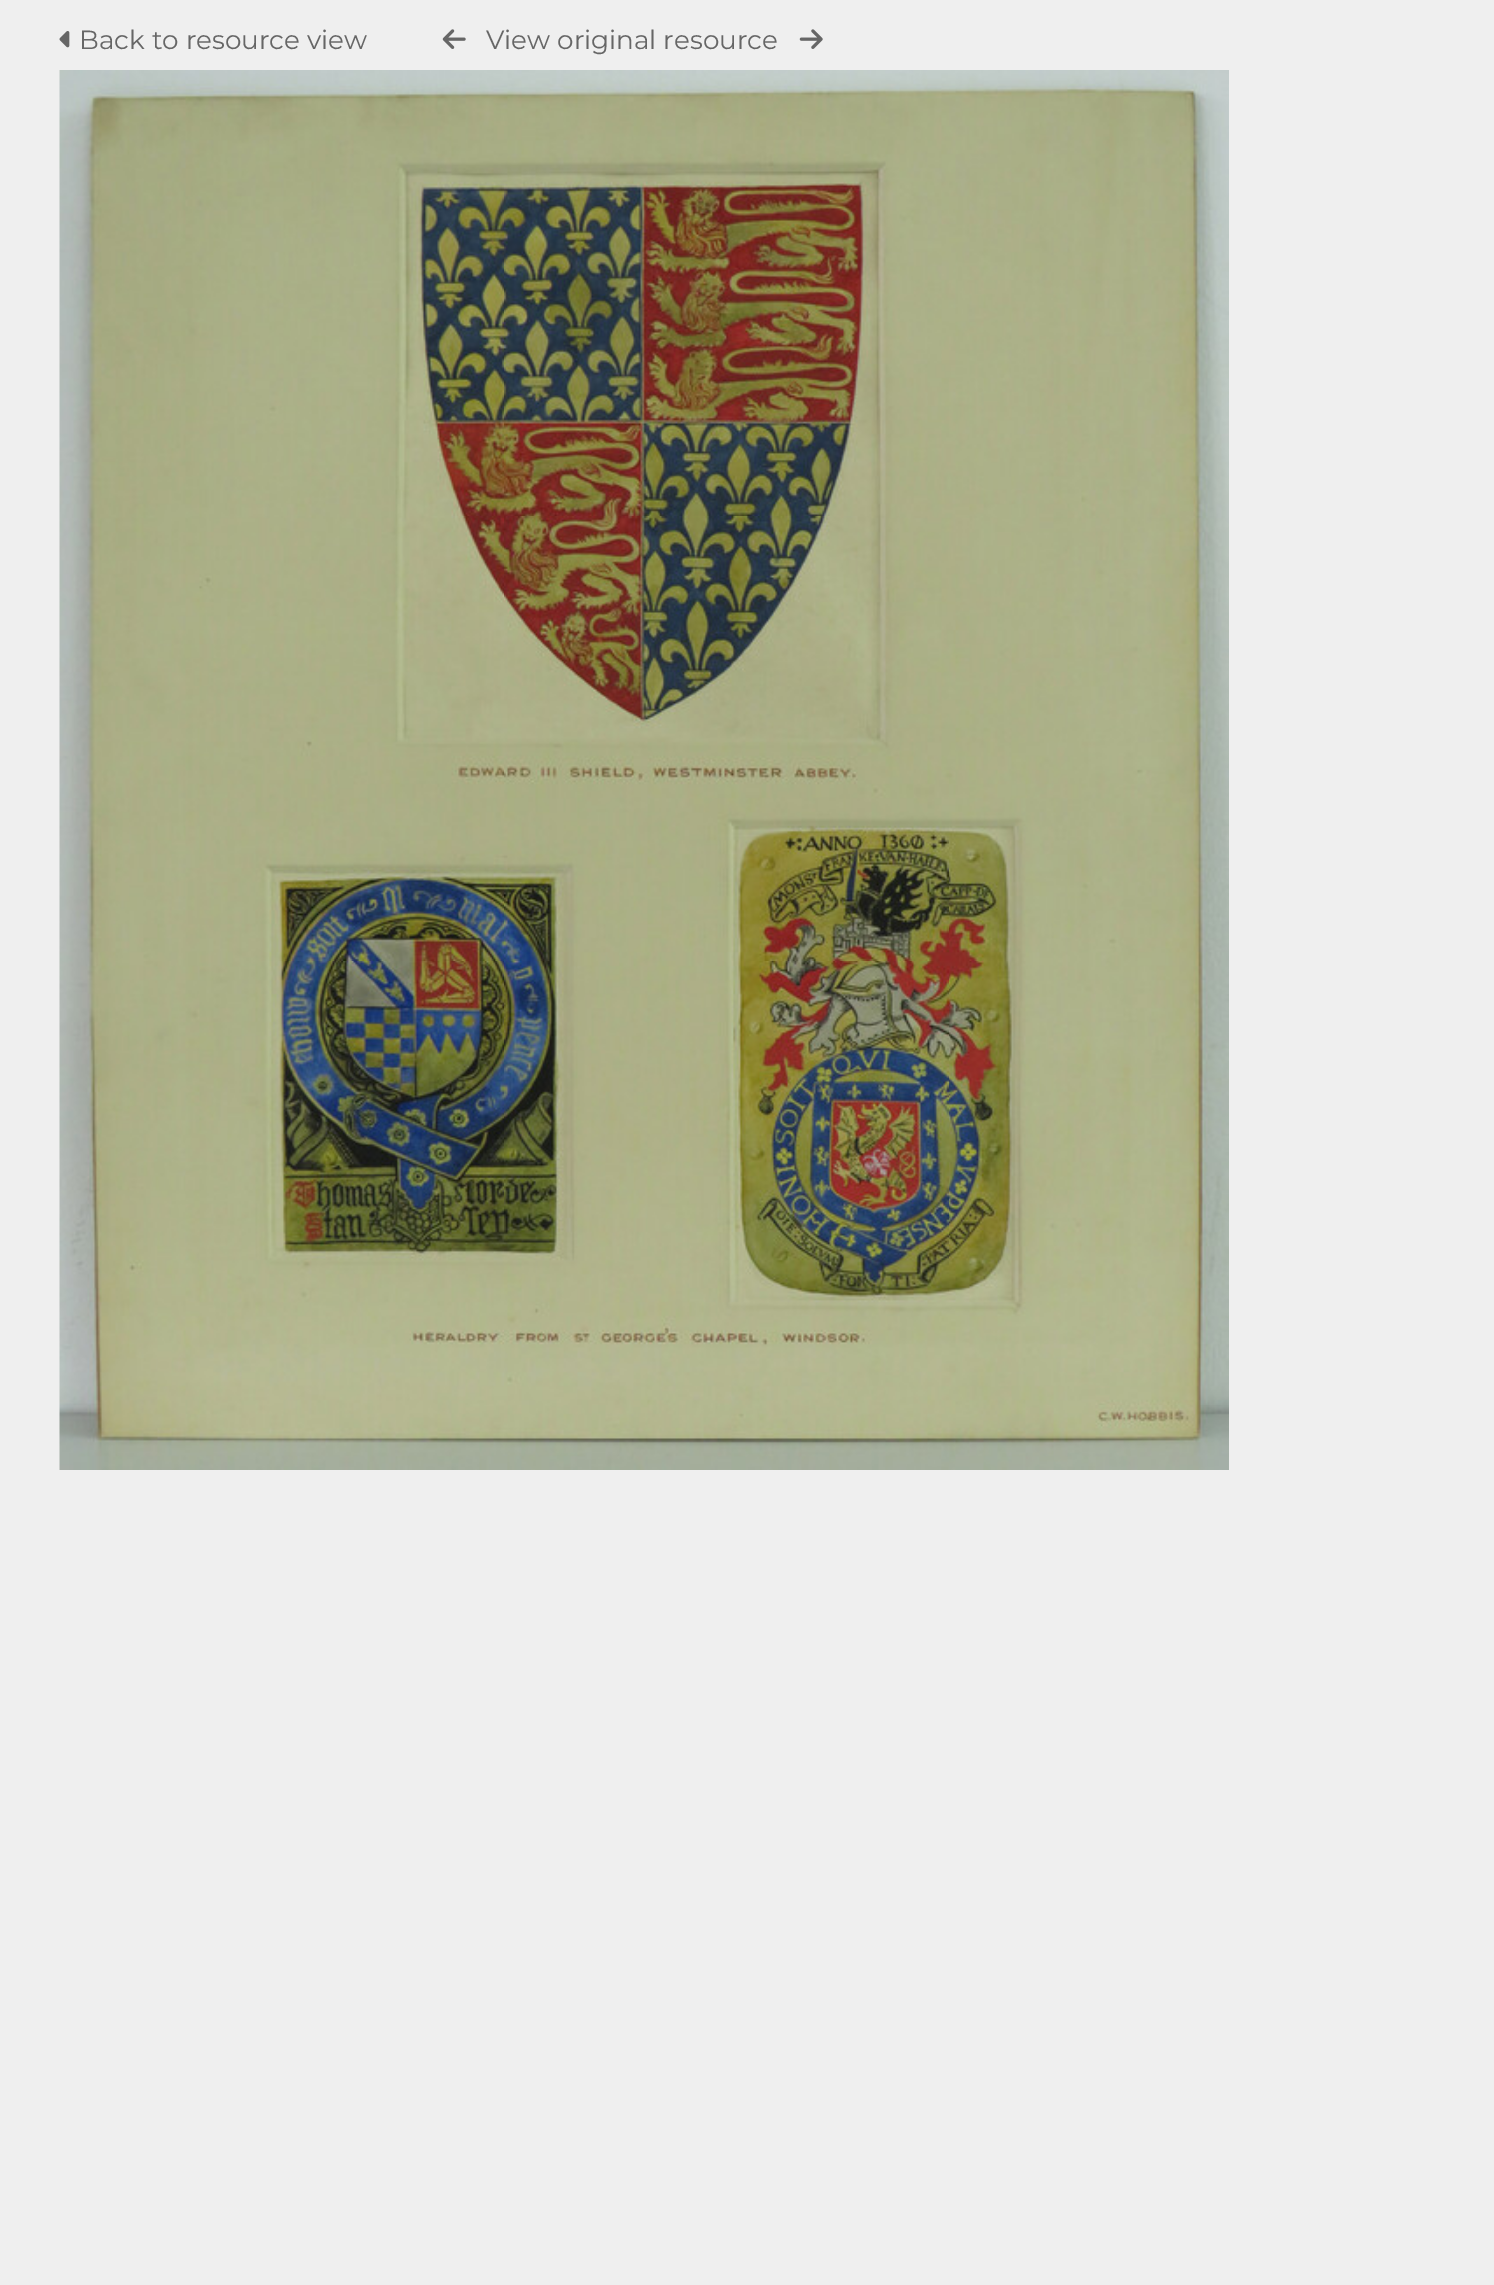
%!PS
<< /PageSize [1494 2285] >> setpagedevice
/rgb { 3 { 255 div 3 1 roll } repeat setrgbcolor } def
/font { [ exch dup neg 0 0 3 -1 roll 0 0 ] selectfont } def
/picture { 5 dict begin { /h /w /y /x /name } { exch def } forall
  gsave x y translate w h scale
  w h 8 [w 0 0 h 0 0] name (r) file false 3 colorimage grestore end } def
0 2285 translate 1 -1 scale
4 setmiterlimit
239 239 239 rgb
0 0 1494 2285 rectfill
(img/1.rgb) 59 31 11 17 picture
(img/2.rgb) 442 29 24 20 picture
(img/3.rgb) 799 29 24 20 picture
(img/4.rgb) 59 70 1170 1400 picture
/Montserrat-Regular 26.25 font
102 102 102 rgb
79 49 moveto (Back to resource view) show
486 49 moveto (View original resource) show
showpage
